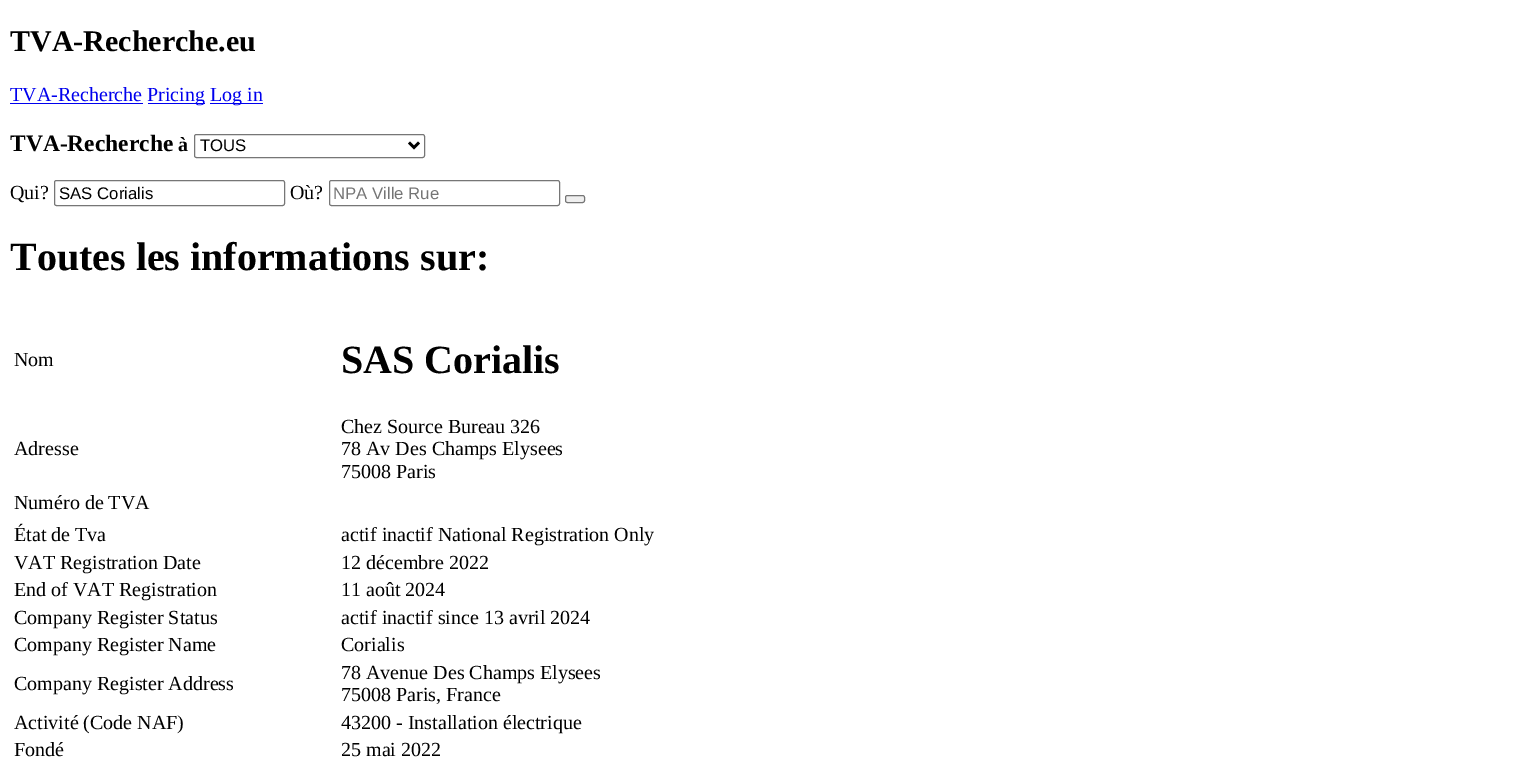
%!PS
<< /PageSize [1530 761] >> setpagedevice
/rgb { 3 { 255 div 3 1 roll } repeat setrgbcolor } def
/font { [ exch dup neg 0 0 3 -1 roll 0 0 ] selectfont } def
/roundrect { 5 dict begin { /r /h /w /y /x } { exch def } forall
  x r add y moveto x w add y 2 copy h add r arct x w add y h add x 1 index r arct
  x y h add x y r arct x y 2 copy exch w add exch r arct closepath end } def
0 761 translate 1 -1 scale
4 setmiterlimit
255 255 255 rgb
0 0 1530 761 rectfill
[
  [10 103 133 1 0 0 238]
  [148 103 57 1 0 0 238]
  [210 103 53 1 0 0 238]
] { aload pop rgb rectfill } forall
118 118 118 rgb
194.5 134.5 230 23 2 roundrect stroke
0 0 0 rgb
2.5 setlinewidth
409 142.5 moveto 414 147.5 lineto 419 142.5 lineto stroke
118 118 118 rgb
1 setlinewidth
54.5 180.5 230 25 2 roundrect stroke
329.5 180.5 230 25 2 roundrect stroke
239 239 239 rgb
565.5 195.5 19 7 2 roundrect gsave fill grestore
118 118 118 rgb
stroke
/LiberationSerif-Bold 30 font
0 0 0 rgb
10 51 moveto (TVA-Recherche.eu) show
/LiberationSerif-Regular 20 font
0 0 238 rgb
[
  [(TVA-Recherche) 10 101]
  [(Pricing) 147 101]
  [(Log in) 210 101]
] { aload pop moveto show } forall
/LiberationSerif-Bold 23.5 font
0 0 0 rgb
10 151 moveto (TVA-Recherche) show
/LiberationSerif-Bold 20 font
178 151 moveto (à) show
/LiberationSans-Regular 16.75 font
200 151 moveto (TOUS) show
/LiberationSerif-Regular 20 font
10 199 moveto (Qui?) show
/LiberationSans-Regular 16.75 font
59 199 moveto (SAS Corialis) show
/LiberationSerif-Regular 20 font
290 199 moveto (Où?) show
/LiberationSans-Regular 16.75 font
117 117 117 rgb
333 199 moveto (NPA Ville Rue) show
/LiberationSerif-Bold 40 font
0 0 0 rgb
10 270 moveto (Toutes les informations sur:) show
/LiberationSerif-Regular 20 font
14 366 moveto (Nom) show
/LiberationSerif-Bold 40 font
341 373 moveto (SAS Corialis) show
/LiberationSerif-Regular 20 font
[
  [(Adresse) 14 455]
  [(Chez Source Bureau 326) 341 433]
  [(78 Av Des Champs Elysees) 341 455]
  [(75008 Paris) 341 478]
  [(Numéro de TVA) 14 509]
  [(État de Tva) 14 541]
  [(actif inactif National Registration Only) 341 541]
  [(VAT Registration Date) 14 569]
  [(12 décembre 2022) 341 569]
  [(End of VAT Registration) 14 596]
  [(11 août 2024) 341 596]
  [(Company Register Status) 14 624]
  [(actif inactif since 13 avril 2024) 341 624]
  [(Company Register Name) 14 651]
  [(Corialis) 341 651]
  [(Company Register Address) 14 690]
  [(78 Avenue Des Champs Elysees) 341 679]
  [(75008 Paris, France) 341 701]
  [(Activité \(Code NAF\)) 14 729]
  [(43200 - Installation électrique) 341 729]
  [(Fondé) 14 756]
  [(25 mai 2022) 341 756]
] { aload pop moveto show } forall
showpage
